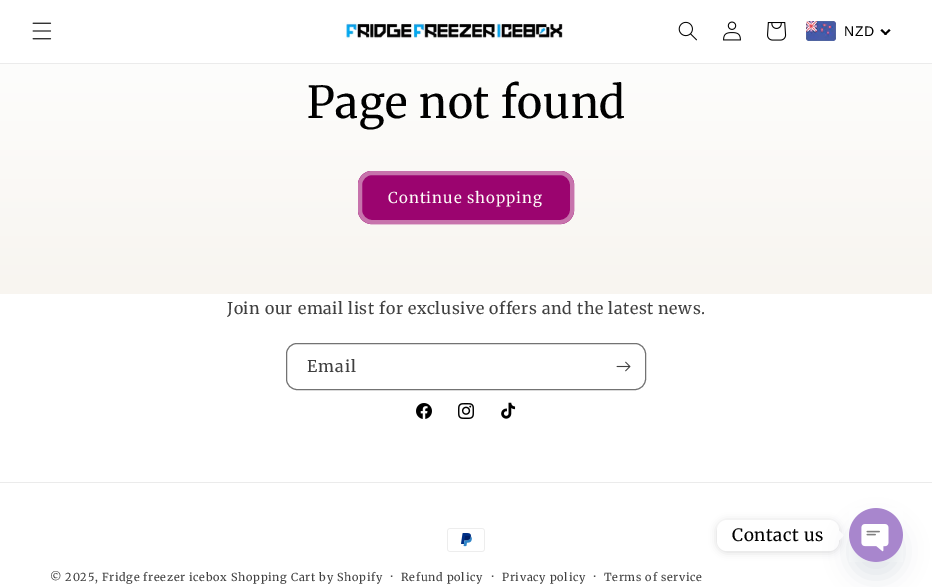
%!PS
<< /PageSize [932 587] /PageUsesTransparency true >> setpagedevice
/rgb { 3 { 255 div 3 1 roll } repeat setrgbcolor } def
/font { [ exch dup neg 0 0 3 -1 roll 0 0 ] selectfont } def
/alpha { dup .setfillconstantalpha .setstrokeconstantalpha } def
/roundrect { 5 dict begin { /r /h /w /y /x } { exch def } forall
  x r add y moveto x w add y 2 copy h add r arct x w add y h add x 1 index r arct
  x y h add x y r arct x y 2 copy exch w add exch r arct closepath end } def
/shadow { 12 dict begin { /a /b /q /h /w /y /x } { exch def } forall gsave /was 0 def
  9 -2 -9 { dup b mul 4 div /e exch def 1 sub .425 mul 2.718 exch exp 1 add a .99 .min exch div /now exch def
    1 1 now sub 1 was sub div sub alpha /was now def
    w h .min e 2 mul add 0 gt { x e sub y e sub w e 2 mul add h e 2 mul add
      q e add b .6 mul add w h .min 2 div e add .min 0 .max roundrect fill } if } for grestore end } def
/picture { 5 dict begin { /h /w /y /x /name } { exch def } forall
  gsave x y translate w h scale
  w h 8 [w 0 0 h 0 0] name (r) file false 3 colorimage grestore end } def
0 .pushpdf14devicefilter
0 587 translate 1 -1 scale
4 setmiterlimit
255 255 255 rgb
0 0 932 587 rectfill
gsave 0 64 moveto 932 64 lineto 932 294 lineto 0 294 lineto closepath clip newpath
<< /ShadingType 2 /ColorSpace /DeviceRGB /Coords [466 0 466 587] /Extend [true true] /Function << /FunctionType 2 /Domain [0 1] /C0 [1 1 1] /C1 [0.945 0.922 0.886] /N 1 >> >> shfill grestore
235 235 235 rgb
0 63 932 1 rectfill
(img/1.rgb) 32 22 20 18 picture
(img/2.rgb) 342 22 221 18 picture
(img/3.rgb) 678 21 19 20 picture
(img/4.rgb) 723 21 18 20 picture
(img/5.rgb) 767 22 20 19 picture
(img/6.rgb) 806 21 30 20 picture
0 0 0 rgb
889 29 moveto 890.5 30.5 lineto 885.5 35 lineto 884 34 lineto closepath fill
882 29 moveto 887 34 lineto 885.5 35 lineto 880.5 30.5 lineto closepath fill
155 4 111 rgb
358 171 216 53 14 roundrect fill
4 setlinewidth
360 173 212 49 12 roundrect stroke
0.45 alpha
253 251 247 rgb
360 173 212 49 12 roundrect stroke
1 alpha
115 115 115 rgb
1 setlinewidth
286.5 343.5 359 46 10.5 roundrect stroke
(img/7.rgb) 616 361 15 11 picture
0 0 0 rgb
717 521 122 31 10 4 0.15 shadow
255 255 255 rgb
717 520 122 31 10 roundrect fill
839 540.5 moveto 839 530.5 lineto 844 535.5 lineto closepath fill
73 104 126 rgb
849 524 54 54 27 12 0.16 shadow
(img/8.rgb) 849 508 54 54 picture
(img/9.rgb) 416 403 16 16 picture
(img/10.rgb) 458 403 16 16 picture
(img/11.rgb) 501 402 15 17 picture
235 235 235 rgb
0 482 932 1 rectfill
(img/12.rgb) 447 528 38 24 picture
/LiberationSans-Regular 14 font
0 0 0 rgb
844 36 moveto 0.6 0 (NZD) ashow
/Merriweather-Regular 44 font
307 118 moveto 0.7 0 (Page not found) ashow
/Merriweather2-Regular 15 font
253 251 247 rgb
388 203 moveto 1 0 (Continue shopping) ashow
/Merriweather2-Regular 16 font
64 64 64 rgb
227 314 moveto 0.6 0 (Join our email list for exclusive offers and the latest news.) ashow
307 372 moveto 1 0 (Email) ashow
/Merriweather2-Regular 17 font
0 0 0 rgb
732 541 moveto 0.6 0 (Contact us) ashow
/Merriweather2-Regular 11 font
64 64 64 rgb
50 581 moveto 0.7 0 (© 2025, Fridge freezer icebox Shopping Cart by Shopify) ashow
/Merriweather2-Regular 12 font
391 581 moveto 0.7 0 (·) ashow
/Merriweather2-Regular 11 font
401 581 moveto 0.7 0 (Refund policy) ashow
/Merriweather2-Regular 12 font
492 581 moveto 0.7 0 (·) ashow
/Merriweather2-Regular 11 font
502 581 moveto 0.7 0 (Privacy policy) ashow
/Merriweather2-Regular 12 font
594 581 moveto 0.7 0 (·) ashow
/Merriweather2-Regular 11 font
604 581 moveto 0.7 0 (Terms of service) ashow
.poppdf14devicefilter showpage
